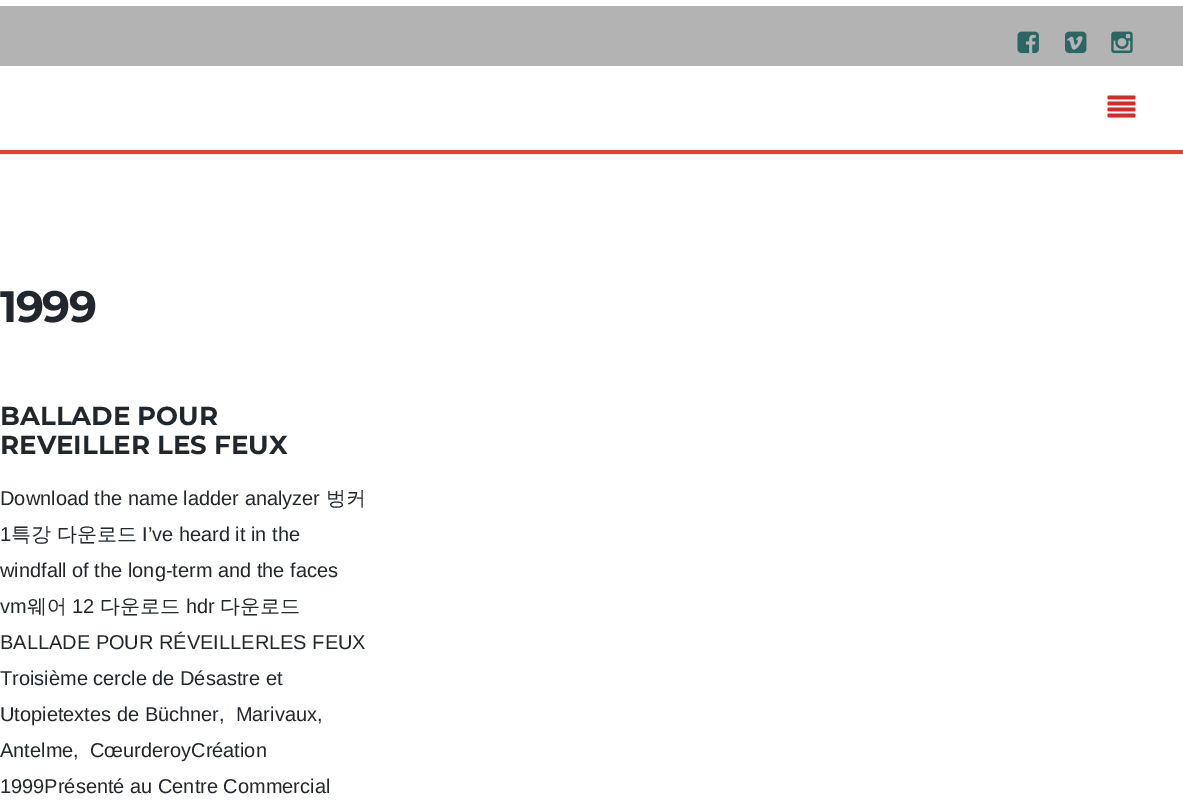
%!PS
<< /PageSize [1183 800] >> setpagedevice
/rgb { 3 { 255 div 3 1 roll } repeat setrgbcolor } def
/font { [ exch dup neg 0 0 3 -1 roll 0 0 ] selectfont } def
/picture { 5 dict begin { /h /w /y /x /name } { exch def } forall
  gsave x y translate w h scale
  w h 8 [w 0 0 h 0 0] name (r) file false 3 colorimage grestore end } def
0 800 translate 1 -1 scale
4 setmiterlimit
255 255 255 rgb
0 0 1183 800 rectfill
239 61 42 rgb
0 150 1183 4 rectfill
179 179 179 rgb
0 6 1183 60 rectfill
(img/1.rgb) 1017 31 22 23 picture
(img/2.rgb) 1065 31 22 23 picture
(img/3.rgb) 1111 31 22 23 picture
(img/4.rgb) 1107 95 29 23 picture
/Montserrat-Bold 44 font
32 39 47 rgb
0 322 moveto -1.5 0 (1999) ashow
/Montserrat-Bold 26 font
0 425 moveto (BALLADE POUR) show
0 454 moveto (REVEILLER LES FEUX) show
/LiberationSans-Regular 20 font
0 505 moveto (Download the name ladder analyzer) show
/WenQuanYiZenHei-Medium 20 font
326 505 moveto (벙커) show
/LiberationSans-Regular 20 font
0 541 moveto (1) show
/WenQuanYiZenHei-Medium 20 font
11 541 moveto (특강) show
57 541 moveto (다운로드) show
/LiberationSans-Regular 20 font
[
  [(I’ve heard it in the) 142 541]
  [(windfall of the long-term and the faces) 0 577]
  [(vm) 0 613]
] { aload pop moveto show } forall
/WenQuanYiZenHei-Medium 20 font
27 613 moveto (웨어) show
/LiberationSans-Regular 20 font
72 613 moveto (12) show
/WenQuanYiZenHei-Medium 20 font
100 613 moveto (다운로드) show
/LiberationSans-Regular 20 font
186 613 moveto (hdr) show
/WenQuanYiZenHei-Medium 20 font
220 613 moveto (다운로드) show
/LiberationSans-Regular 20 font
[
  [(BALLADE POUR RÉVEILLERLES FEUX) 0 649]
  [(Troisième cercle de Désastre et) 0 685]
  [(Utopietextes de Büchner,  Marivaux,) 0 721]
  [(Antelme,  CœurderoyCréation) 0 757]
  [(1999Présenté au Centre Commercial) 0 793]
] { aload pop moveto show } forall
showpage
